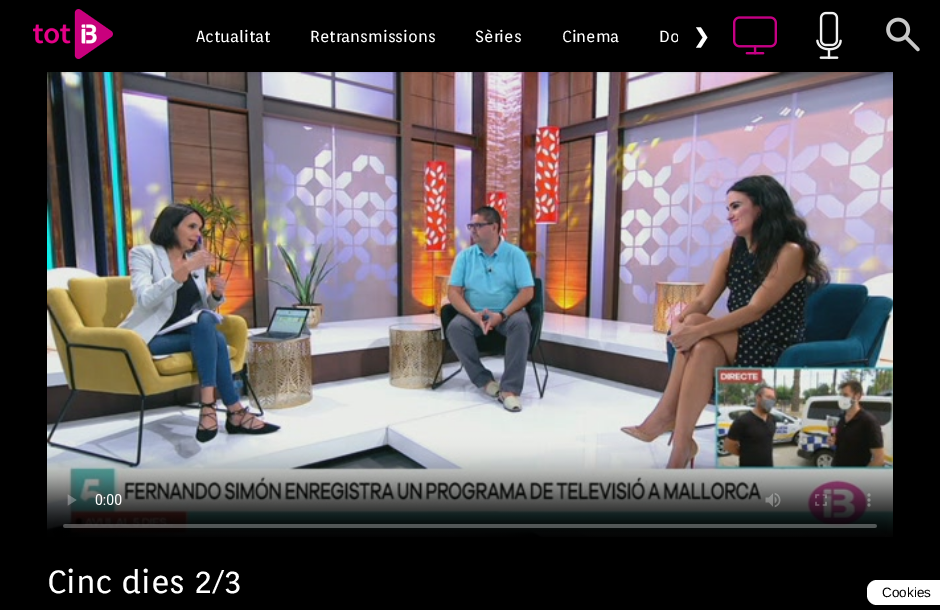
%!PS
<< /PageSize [940 610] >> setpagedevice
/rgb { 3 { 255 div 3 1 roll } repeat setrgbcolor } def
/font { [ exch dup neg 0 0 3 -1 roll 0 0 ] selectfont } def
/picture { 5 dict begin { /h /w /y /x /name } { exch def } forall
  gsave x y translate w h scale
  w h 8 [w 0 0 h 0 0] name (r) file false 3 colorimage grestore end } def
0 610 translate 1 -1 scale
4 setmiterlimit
0 0 0 rgb
0 0 940 610 rectfill
(img/1.rgb) 33 9 80 50 picture
(img/2.rgb) 733 16 44 39 picture
(img/3.rgb) 816 11 26 48 picture
(img/4.rgb) 886 17 34 35 picture
(img/5.rgb) 47 72 846 465 picture
255 255 255 rgb
877 580 moveto 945 580 lineto 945 605 lineto 877 605 lineto 871.5 605 867 600.5 867 595 curveto 867 590 lineto 867 584.5 871.5 580 877 580 curveto closepath fill
/Orienta-Regular 16 font
[
  [(Actualitat) 196 42]
  [(Retransmissions) 310 42]
  [(Sèries) 475 42]
  [(Cinema) 562 42]
] { aload pop moveto show } forall
gsave
176 8 502 56 rectclip
659 42 moveto (Do) show
grestore
/DejaVuSans-Bold 20 font
693 43 moveto (❯) show
/Orienta-Regular 32 font
47 593 moveto (Cinc dies 2/3) show
/LiberationSans-Regular 13.5 font
0 0 0 rgb
882 597 moveto (Cookies) show
showpage
